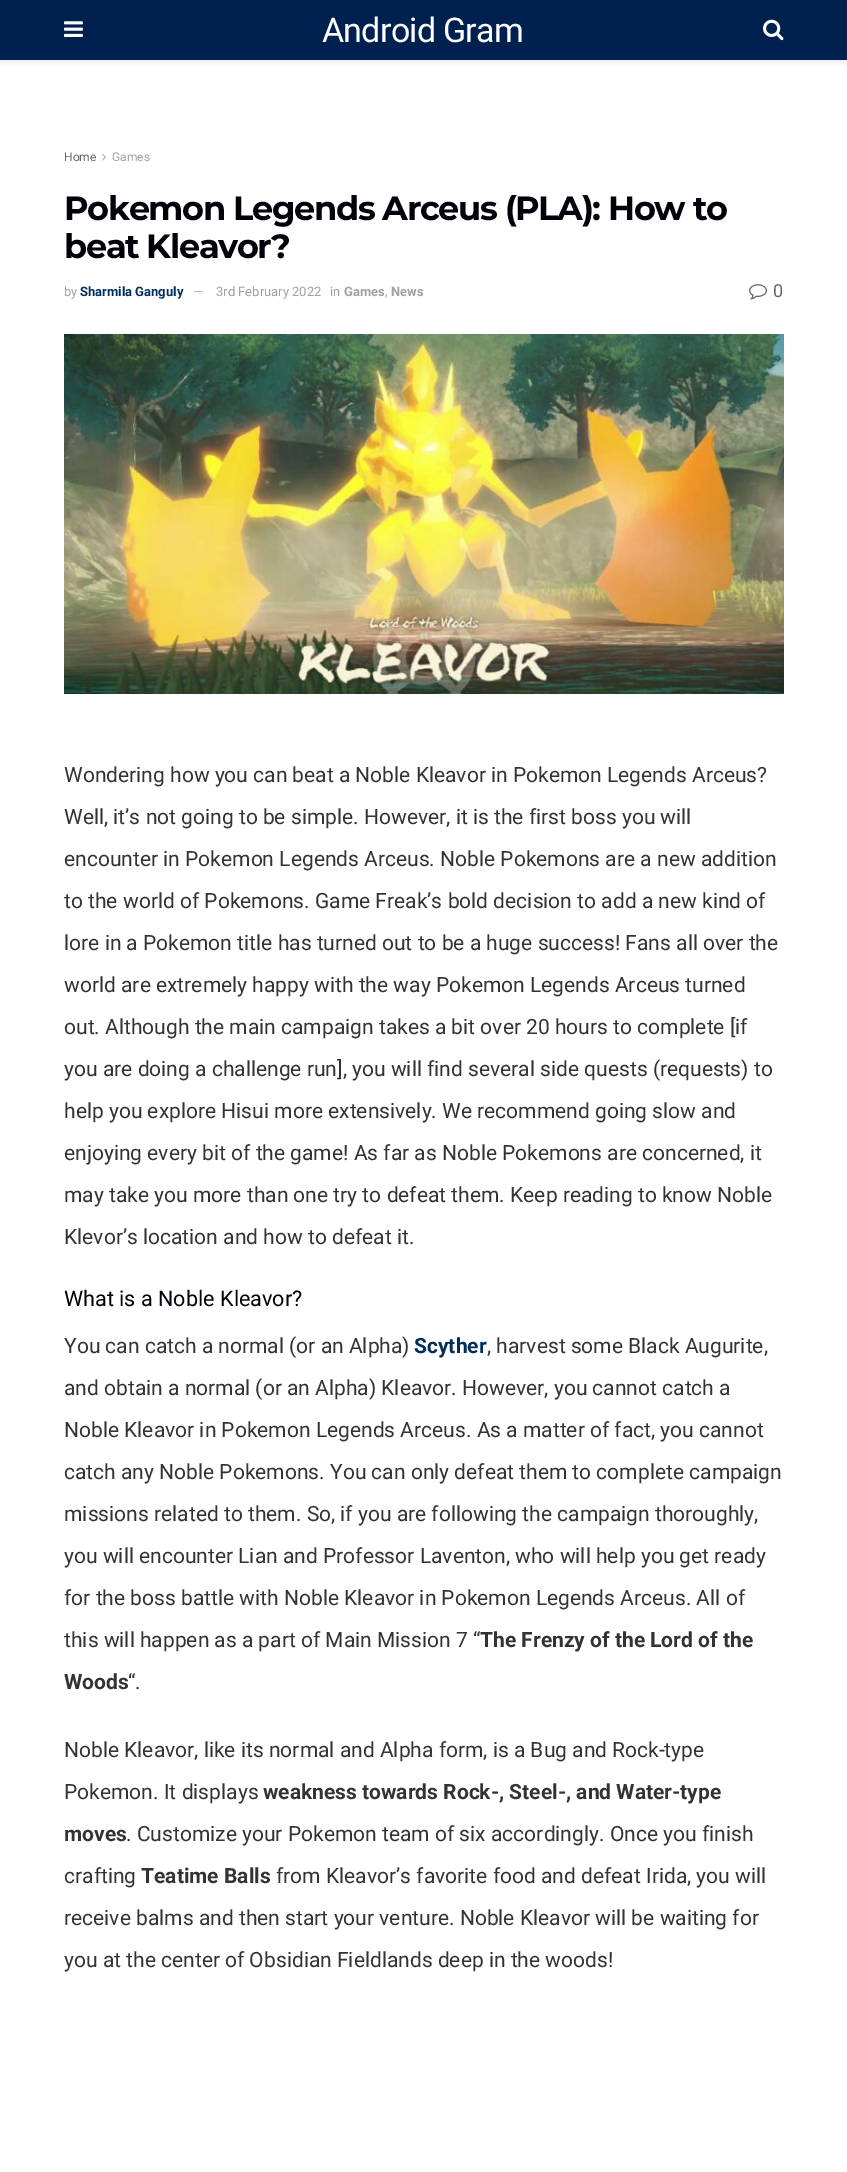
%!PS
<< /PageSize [847 2172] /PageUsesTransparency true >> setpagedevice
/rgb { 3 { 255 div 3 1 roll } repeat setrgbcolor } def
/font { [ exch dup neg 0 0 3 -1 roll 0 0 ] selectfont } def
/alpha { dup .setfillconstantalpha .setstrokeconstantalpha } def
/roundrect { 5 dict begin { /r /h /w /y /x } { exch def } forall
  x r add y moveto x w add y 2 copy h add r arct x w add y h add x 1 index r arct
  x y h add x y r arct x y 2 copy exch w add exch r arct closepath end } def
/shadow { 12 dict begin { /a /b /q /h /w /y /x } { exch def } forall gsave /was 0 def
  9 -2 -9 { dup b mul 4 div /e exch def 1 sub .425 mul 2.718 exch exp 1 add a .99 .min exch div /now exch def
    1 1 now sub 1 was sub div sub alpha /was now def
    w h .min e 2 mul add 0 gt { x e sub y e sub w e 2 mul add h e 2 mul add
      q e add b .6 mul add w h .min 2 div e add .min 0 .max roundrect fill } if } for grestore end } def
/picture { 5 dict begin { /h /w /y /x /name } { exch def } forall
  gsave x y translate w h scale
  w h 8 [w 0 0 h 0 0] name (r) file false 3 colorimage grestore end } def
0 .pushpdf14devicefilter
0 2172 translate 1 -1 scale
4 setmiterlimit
255 255 255 rgb
0 0 847 2172 rectfill
0 0 0 rgb
0 2 847 60 0 3 0.1 shadow
0 33 79 rgb
0 0 847 60 rectfill
(img/1.rgb) 64 21 19 16 picture
(img/2.rgb) 763 19 21 22 picture
(img/3.rgb) 102 153 4 8 picture
(img/4.rgb) 749 284 18 16 picture
(img/5.rgb) 64 334 720 360 picture
/Roboto-Regular 34 font
255 255 255 rgb
322 42 moveto -0.75 0 (Android Gram) ashow
/Roboto-Regular 12 font
102 102 102 rgb
64 161 moveto (Home) show
160 160 160 rgb
112 161 moveto (Games) show
/Montserrat-Bold 33.6 font
2 1 10 rgb
64 220 moveto -1.35 0 (Pokemon Legends Arceus \(PLA\): How to) ashow
64 258 moveto -1.35 0 (beat Kleavor?) ashow
/Roboto-Regular 13 font
160 160 160 rgb
64 296 moveto (by) show
/Roboto-Bold 13 font
0 46 91 rgb
80 296 moveto (Sharmila Ganguly) show
/Roboto-Regular 13 font
160 160 160 rgb
[
  [(—) 193 296]
  [(3rd February 2022) 216 296]
  [(in) 330 296]
] { aload pop moveto show } forall
/Roboto-Bold 13 font
344 296 moveto (Games) show
/Roboto-Regular 13 font
385 296 moveto (,) show
/Roboto-Bold 13 font
391 296 moveto (News) show
/Roboto-Regular 18 font
102 102 102 rgb
773 297 moveto (0) show
/Roboto-Regular 21 font
51 51 51 rgb
[
  [(Wondering how you can beat a Noble Kleavor in Pokemon Legends Arceus?) 64 782]
  [(Well, it’s not going to be simple. However, it is the first boss you will) 64 824]
  [(encounter in Pokemon Legends Arceus. Noble Pokemons are a new addition) 64 866]
  [(to the world of Pokemons. Game Freak’s bold decision to add a new kind of) 64 908]
  [(lore in a Pokemon title has turned out to be a huge success! Fans all over the) 64 950]
  [(world are extremely happy with the way Pokemon Legends Arceus turned) 64 992]
  [(out. Although the main campaign takes a bit over 20 hours to complete [if) 64 1034]
  [(you are doing a challenge run], you will find several side quests \(requests\) to) 64 1076]
  [(help you explore Hisui more extensively. We recommend going slow and) 64 1118]
  [(enjoying every bit of the game! As far as Noble Pokemons are concerned, it) 64 1160]
  [(may take you more than one try to defeat them. Keep reading to know Noble) 64 1202]
  [(Klevor’s location and how to defeat it.) 64 1244]
] { aload pop moveto show } forall
/Roboto-Regular 21.6 font
2 1 10 rgb
64 1306 moveto (What is a Noble Kleavor?) show
/Roboto-Regular 21 font
51 51 51 rgb
64 1353 moveto (You can catch a normal \(or an Alpha\)) show
/Roboto-Bold 21 font
0 46 91 rgb
414 1353 moveto (Scyther) show
/Roboto-Regular 21 font
51 51 51 rgb
[
  [(, harvest some Black Augurite,) 487 1353]
  [(and obtain a normal \(or an Alpha\) Kleavor. However, you cannot catch a) 64 1395]
  [(Noble Kleavor in Pokemon Legends Arceus. As a matter of fact, you cannot) 64 1437]
  [(catch any Noble Pokemons. You can only defeat them to complete campaign) 64 1479]
  [(missions related to them. So, if you are following the campaign thoroughly,) 64 1521]
  [(you will encounter Lian and Professor Laventon, who will help you get ready) 64 1563]
  [(for the boss battle with Noble Kleavor in Pokemon Legends Arceus. All of) 64 1605]
  [(this will happen as a part of Main Mission 7 “) 64 1647]
] { aload pop moveto show } forall
/Roboto-Bold 21 font
480 1647 moveto (The Frenzy of the Lord of the) show
64 1689 moveto (Woods) show
/Roboto-Regular 21 font
[
  [(“.) 128 1689]
  [(Noble Kleavor, like its normal and Alpha form, is a Bug and Rock-type) 64 1757]
  [(Pokemon. It displays) 64 1799]
] { aload pop moveto show } forall
/Roboto-Bold 21 font
263 1799 moveto (weakness towards Rock-, Steel-, and Water-type) show
64 1841 moveto (moves) show
/Roboto-Regular 21 font
126 1841 moveto (. Customize your Pokemon team of six accordingly. Once you finish) show
64 1883 moveto (crafting) show
/Roboto-Bold 21 font
141 1883 moveto (Teatime Balls) show
/Roboto-Regular 21 font
[
  [(from Kleavor’s favorite food and defeat Irida, you will) 276 1883]
  [(receive balms and then start your venture. Noble Kleavor will be waiting for) 64 1925]
  [(you at the center of Obsidian Fieldlands deep in the woods!) 64 1967]
] { aload pop moveto show } forall
.poppdf14devicefilter showpage
